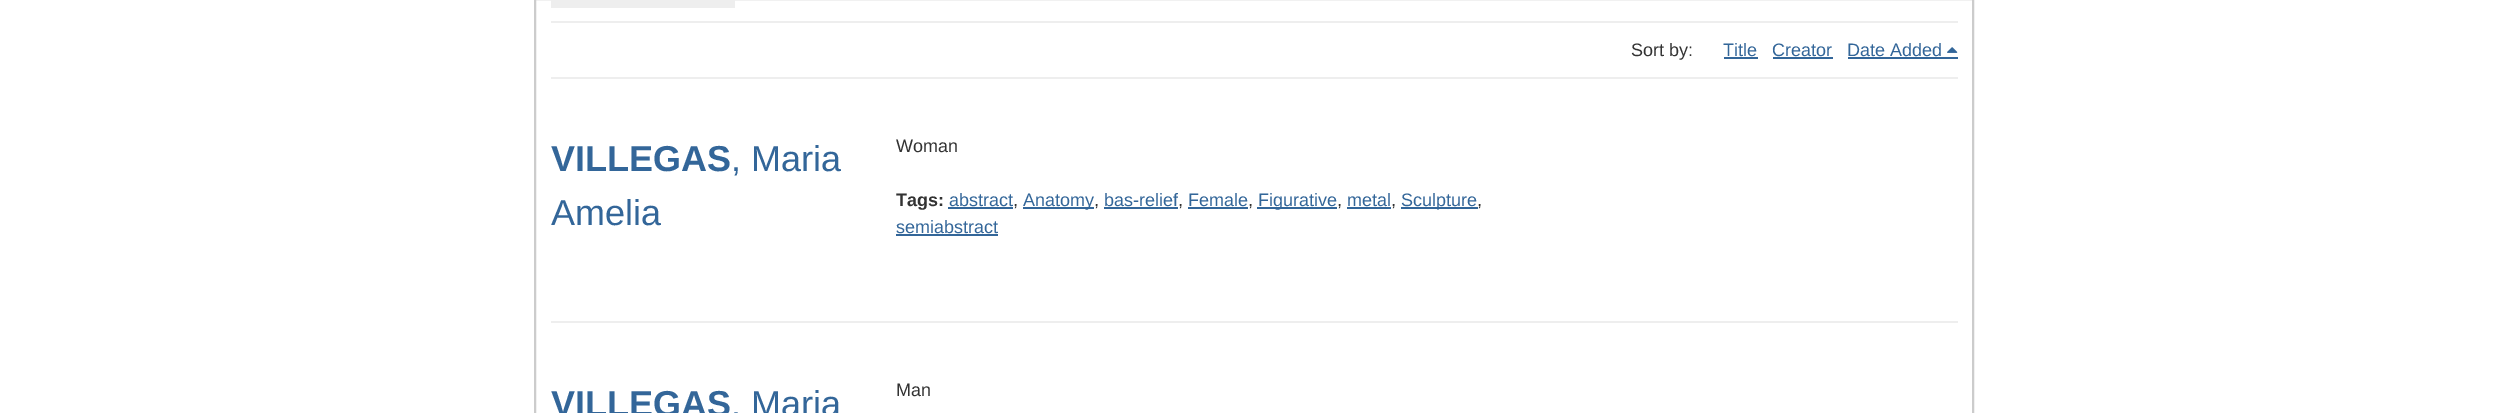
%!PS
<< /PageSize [2508 413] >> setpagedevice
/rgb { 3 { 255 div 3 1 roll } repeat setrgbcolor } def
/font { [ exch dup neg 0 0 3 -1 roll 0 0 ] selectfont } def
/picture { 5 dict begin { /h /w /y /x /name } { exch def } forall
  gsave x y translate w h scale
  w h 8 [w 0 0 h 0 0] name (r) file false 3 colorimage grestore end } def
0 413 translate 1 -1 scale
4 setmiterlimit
255 255 255 rgb
0 0 2508 413 rectfill
204 204 204 rgb
2 setlinewidth
535 -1 1438 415 rectstroke
[
  [551 21 1407 2 238 238 238]
  [551 0 184 8 238 238 238]
  [1724 57 34 2 51 102 153]
  [1773 57 60 2 51 102 153]
  [1848 57 110 2 51 102 153]
] { aload pop rgb rectfill } forall
(img/1.rgb) 1947 47 11 6 picture
[
  [551 77 1407 2 238 238 238]
  [551 321 1407 2 238 238 238]
  [948 207 65 2 51 102 153]
  [1023 207 71 2 51 102 153]
  [1104 207 74 2 51 102 153]
  [1188 207 60 2 51 102 153]
  [1257 207 80 2 51 102 153]
  [1347 207 44 2 51 102 153]
  [1401 207 77 2 51 102 153]
  [896 234 102 2 51 102 153]
] { aload pop rgb rectfill } forall
/LiberationSans-Regular 18 font
51 51 51 rgb
1631 56 moveto (Sort by:) show
51 102 153 rgb
[
  [(Title) 1723 56]
  [(Creator) 1772 56]
  [(Date Added) 1847 56]
] { aload pop moveto show } forall
/LiberationSans-Bold 36 font
551 171 moveto (VILLEGAS) show
/LiberationSans-Regular 36 font
731 171 moveto (, Maria) show
551 225 moveto (Amelia) show
/LiberationSans-Regular 18 font
51 51 51 rgb
896 152 moveto (Woman) show
/LiberationSans-Bold 18 font
896 206 moveto (Tags:) show
/LiberationSans-Regular 18 font
51 102 153 rgb
949 206 moveto (abstract) show
51 51 51 rgb
1013 206 moveto (,) show
51 102 153 rgb
1023 206 moveto (Anatomy) show
51 51 51 rgb
1094 206 moveto (,) show
51 102 153 rgb
1104 206 moveto (bas-relief) show
51 51 51 rgb
1178 206 moveto (,) show
51 102 153 rgb
1188 206 moveto (Female) show
51 51 51 rgb
1248 206 moveto (,) show
51 102 153 rgb
1258 206 moveto (Figurative) show
51 51 51 rgb
1337 206 moveto (,) show
51 102 153 rgb
1347 206 moveto (metal) show
51 51 51 rgb
1391 206 moveto (,) show
51 102 153 rgb
1401 206 moveto (Sculpture) show
51 51 51 rgb
1477 206 moveto (,) show
51 102 153 rgb
896 233 moveto (semiabstract) show
/LiberationSans-Bold 36 font
551 416 moveto (VILLEGAS) show
/LiberationSans-Regular 36 font
731 416 moveto (, Maria) show
/LiberationSans-Regular 18 font
51 51 51 rgb
896 396 moveto (Man) show
showpage
